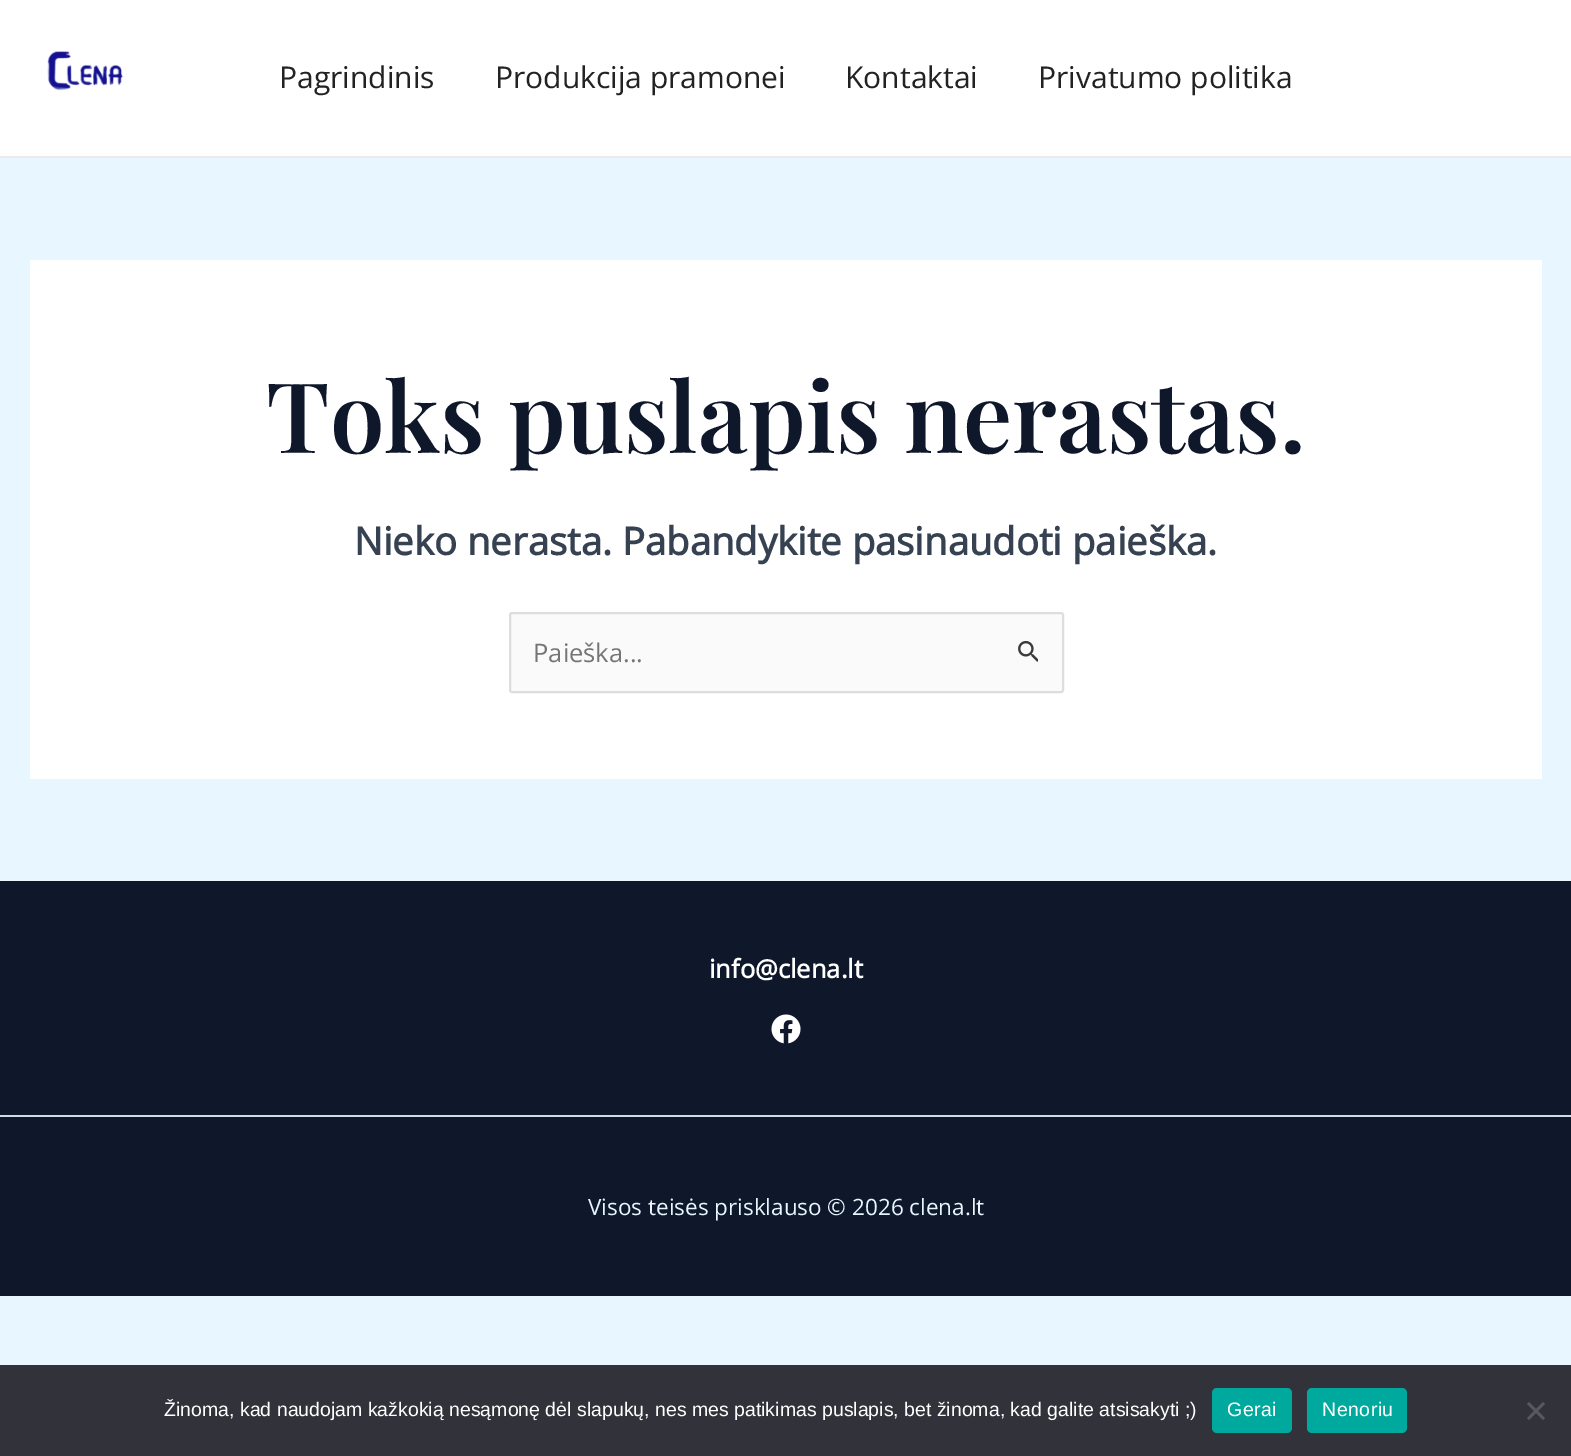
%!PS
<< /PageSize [1571 1456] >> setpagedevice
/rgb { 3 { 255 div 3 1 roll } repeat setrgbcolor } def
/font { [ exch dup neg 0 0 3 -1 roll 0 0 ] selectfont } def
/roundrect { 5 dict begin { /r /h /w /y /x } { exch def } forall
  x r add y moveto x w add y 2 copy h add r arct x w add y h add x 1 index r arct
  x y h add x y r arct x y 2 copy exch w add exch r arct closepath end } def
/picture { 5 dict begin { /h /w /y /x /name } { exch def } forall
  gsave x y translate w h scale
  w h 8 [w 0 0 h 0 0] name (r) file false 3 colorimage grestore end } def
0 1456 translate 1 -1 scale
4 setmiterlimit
231 246 255 rgb
0 0 1571 1456 rectfill
255 255 255 rgb
0 0 1571 156 rectfill
234 234 234 rgb
0 156 1571 2 rectfill
(img/1.rgb) 47 51 76 39 picture
255 255 255 rgb
30 260 1512 519 rectfill
250 250 250 rgb
510 613 553 79 2 roundrect gsave fill grestore
221 221 221 rgb
2 setlinewidth
stroke
(img/2.rgb) 1018 641 20 21 picture
15 23 42 rgb
0 881 1571 234 rectfill
(img/3.rgb) 771 1014 30 30 picture
[
  [0 1117 1571 179 15 23 42]
  [0 1115 1571 2 209 218 229]
  [0 1365 1571 91 50 50 58]
] { aload pop rgb rectfill } forall
0 169 157 rgb
1212 1388 80 45 5 roundrect fill
1307 1388 100 45 5 roundrect fill
89 89 93 rgb
1543 1402 moveto 1545 1404 lineto 1529 1420 lineto 1527 1418 lineto closepath fill
1527 1404 moveto 1529 1402 lineto 1545 1418 lineto 1543 1420 lineto closepath fill
/OpenSans-Regular 30 font
34 34 34 rgb
[
  [(Pagrindinis) 279 88]
  [(Produkcija pramonei) 495 88]
  [(Kontaktai) 845 88]
  [(Privatumo politika) 1038 88]
] { aload pop moveto show } forall
/PlayfairDisplay-SemiBold 97.5 font
15 23 42 rgb
266 453 moveto (Toks puslapis nerastas.) show
/OpenSans-Bold 38.25 font
54 65 81 rgb
354 555 moveto (Nieko nerasta. Pabandykite pasinaudoti paieška.) show
/OpenSans-Regular 25.5 font
117 117 117 rgb
533 662 moveto (Paieška...) show
/OpenSans-Bold 25.5 font
255 255 255 rgb
709 978 moveto (info@clena.lt) show
/OpenSans-Regular 22.5 font
231 246 255 rgb
588 1215 moveto (Visos teisės prisklauso © 2026 clena.lt) show
/LiberationSans-Regular 19.5 font
255 255 255 rgb
164 1416 moveto (Žinoma, kad naudojam kažkokią nesąmonę dėl slapukų, nes mes patikimas puslapis, bet žinoma, kad galite atsisakyti ;\)) show
1227 1416 moveto 0.5 0 (Gerai) ashow
1322 1416 moveto 0.5 0 (Nenoriu) ashow
showpage
